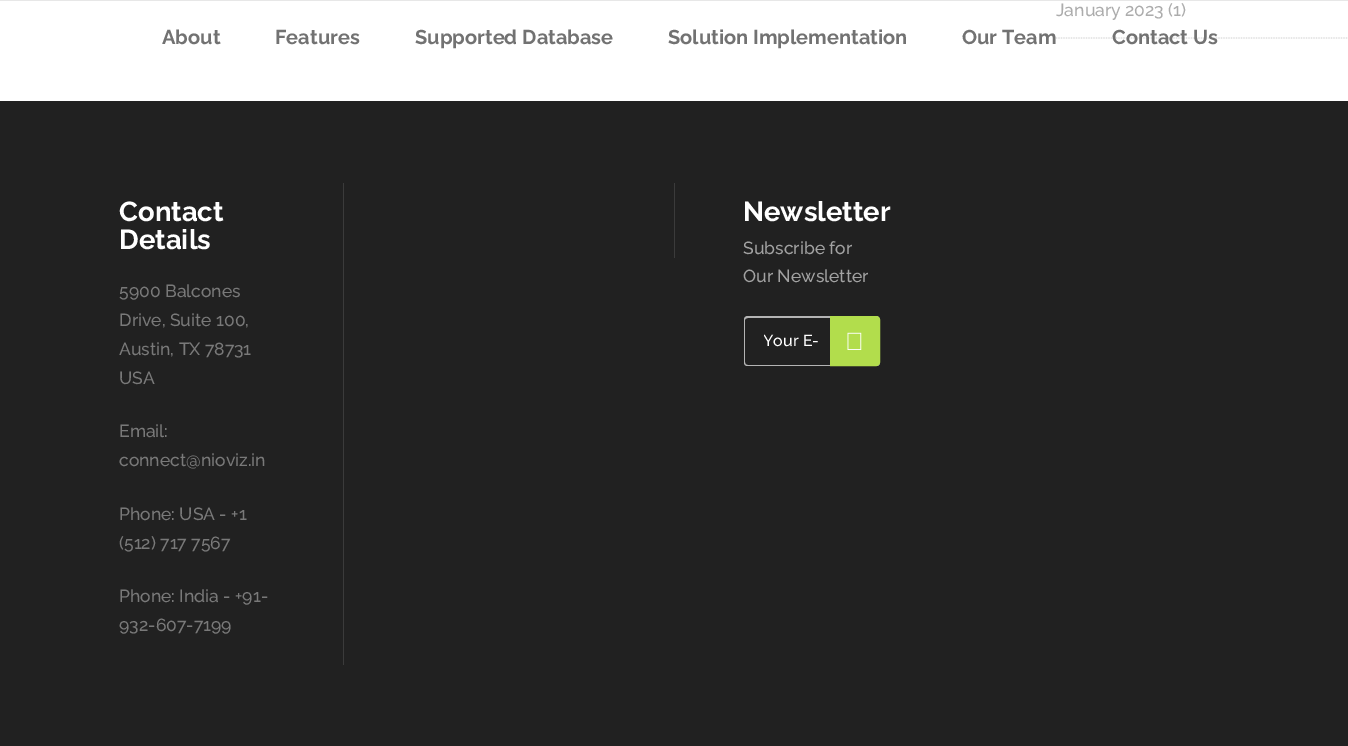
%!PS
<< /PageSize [1348 746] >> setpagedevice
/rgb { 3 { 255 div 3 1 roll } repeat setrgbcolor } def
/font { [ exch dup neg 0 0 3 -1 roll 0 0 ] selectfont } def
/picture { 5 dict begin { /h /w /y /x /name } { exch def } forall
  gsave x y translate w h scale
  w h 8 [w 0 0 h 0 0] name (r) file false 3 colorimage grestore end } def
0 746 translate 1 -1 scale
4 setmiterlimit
255 255 255 rgb
0 0 1348 746 rectfill
223 223 223 rgb
1.2 setlinewidth
[1.25 1.25] 0 setdash
1056 38 moveto 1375 38 lineto stroke
[
  [0 0 1348 1 231 231 231]
  [0 101 1348 645 33 33 33]
  [343 183 1 482 59 59 59]
  [674 183 1 75 59 59 59]
] { aload pop rgb rectfill } forall
180 180 180 rgb
748 316 moveto 876 316 lineto 878 316 880 318 880 320 curveto 880 362 lineto 880 365 878 366 876 366 curveto 748 366 lineto 745 366 744 365 744 362 curveto 744 320 lineto 744 318 745 316 748 316 curveto closepath 748 318 moveto 876 318 lineto 878 318 880 319 880 320 curveto 880 362 lineto 880 364 878 365 876 365 curveto 748 365 lineto 746 365 745 364 745 362 curveto 745 320 lineto 745 319 746 318 748 318 curveto closepath eofill
178 221 76 rgb
831.5 317.5 moveto 876 317.5 lineto 877.5 317.5 878.5 318.5 878.5 320 curveto 878.5 362 lineto 878.5 363.5 877.5 364.5 876 364.5 curveto 831.5 364.5 lineto closepath gsave fill grestore
3 setlinewidth
[] 0 setdash
stroke
(img/1.rgb) 847 332 15 18 picture
/Raleway-Medium 17.5 font
172 172 172 rgb
1056 16 moveto (January 2023 \(1\)) show
/Raleway-Bold 20 font
114 114 114 rgb
[
  [(About) 162 44]
  [(Features) 275 44]
  [(Supported Database) 415 44]
  [(Solution Implementation) 668 44]
  [(Our Team) 962 44]
  [(Contact Us) 1112 44]
] { aload pop moveto show } forall
/Raleway-Bold 27.5 font
255 255 255 rgb
119 221 moveto (Contact) show
119 249 moveto (Details) show
/Raleway-Medium 17.5 font
121 121 121 rgb
[
  [(5900 Balcones) 119 297]
  [(Drive, Suite 100,) 119 326]
  [(Austin, TX 78731) 119 355]
  [(USA) 119 384]
  [(Email:) 119 437]
  [(connect@nioviz.in) 119 466]
  [(Phone: USA - +1) 119 520]
  [(\(512\) 717 7567) 119 549]
  [(Phone: India - +91-) 119 602]
  [(932-607-7199) 119 631]
] { aload pop moveto show } forall
/Raleway-Bold 27.5 font
255 255 255 rgb
743 221 moveto (Newsletter) show
/Raleway-Medium 17.5 font
162 162 162 rgb
743 254 moveto (Subscribe for) show
743 282 moveto (Our Newsletter) show
gsave
764 331 54 19 rectclip
/Raleway-Medium 16 font
255 255 255 rgb
763 346 moveto (Your E-) show
grestore
showpage
